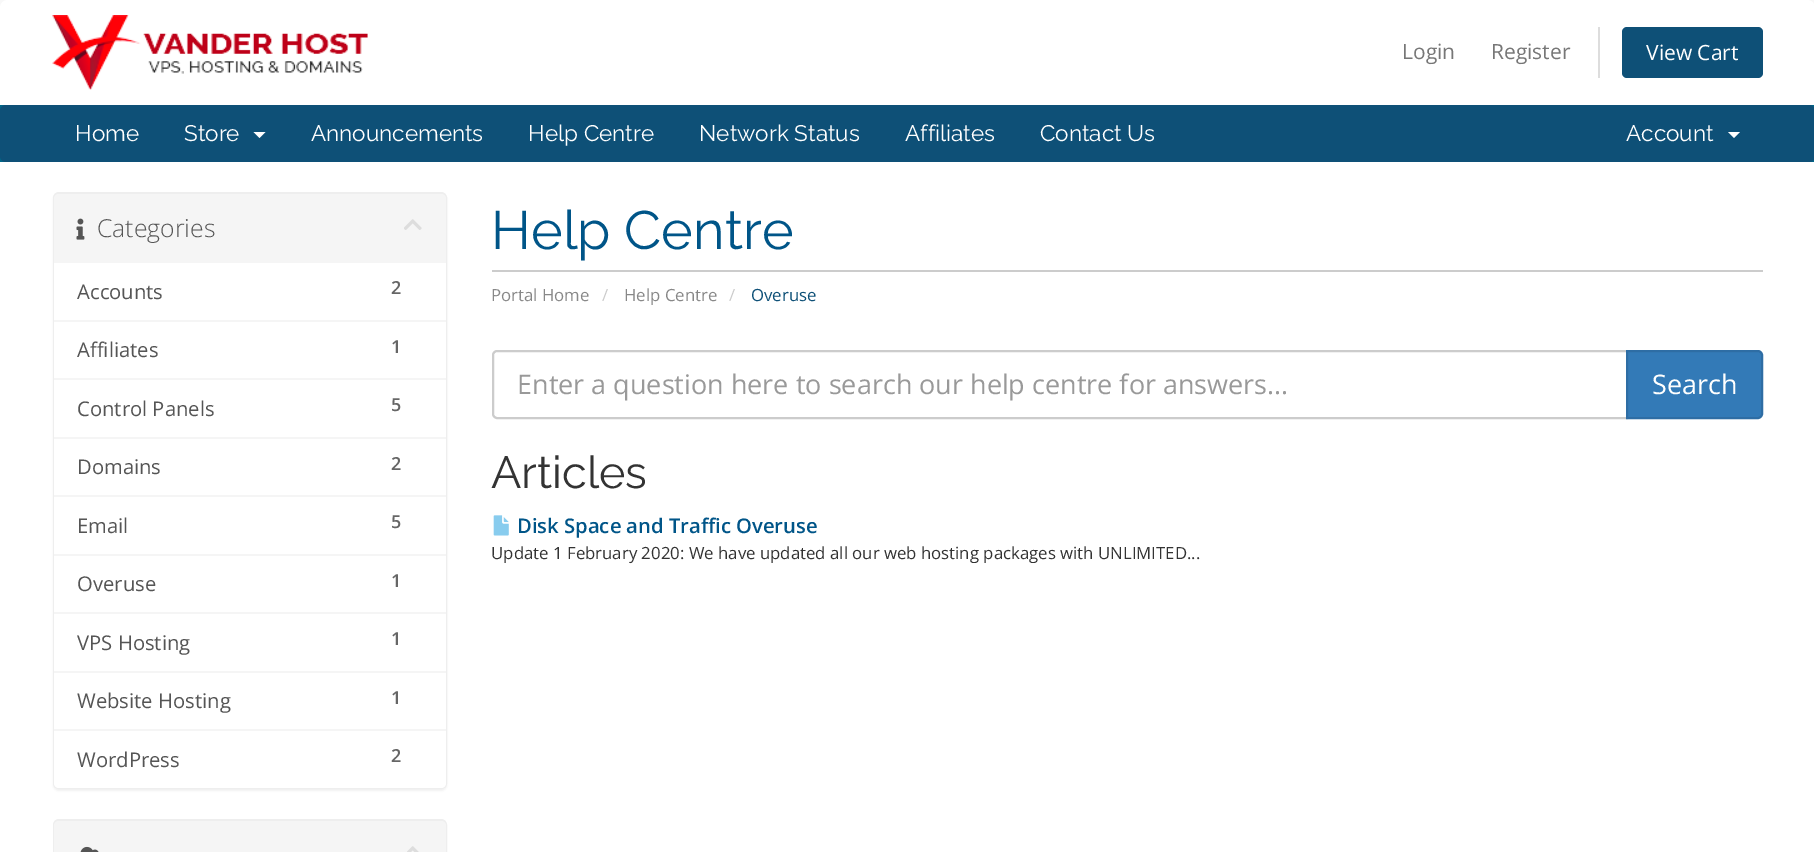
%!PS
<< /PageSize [1814 852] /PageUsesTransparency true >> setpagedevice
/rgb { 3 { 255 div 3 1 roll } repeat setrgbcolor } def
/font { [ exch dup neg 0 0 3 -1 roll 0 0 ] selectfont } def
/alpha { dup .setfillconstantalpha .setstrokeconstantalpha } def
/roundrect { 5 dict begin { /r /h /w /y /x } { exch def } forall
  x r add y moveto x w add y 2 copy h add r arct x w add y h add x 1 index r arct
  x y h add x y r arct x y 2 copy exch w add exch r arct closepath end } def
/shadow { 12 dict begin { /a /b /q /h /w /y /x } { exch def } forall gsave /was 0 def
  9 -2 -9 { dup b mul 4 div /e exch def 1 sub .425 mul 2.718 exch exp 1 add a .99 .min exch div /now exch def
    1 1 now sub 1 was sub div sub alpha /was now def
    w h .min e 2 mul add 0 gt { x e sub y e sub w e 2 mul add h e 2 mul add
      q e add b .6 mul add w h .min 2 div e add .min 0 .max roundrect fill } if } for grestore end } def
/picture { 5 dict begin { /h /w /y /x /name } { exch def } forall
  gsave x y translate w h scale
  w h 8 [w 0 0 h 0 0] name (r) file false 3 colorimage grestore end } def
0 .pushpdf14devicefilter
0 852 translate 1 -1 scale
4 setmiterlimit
248 248 248 rgb
0 0 1814 852 rectfill
255 255 255 rgb
8 0 moveto 1807 0 lineto 1811.5 0 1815 3.5 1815 8 curveto 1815 105 lineto 0 105 lineto 0 8 lineto 0 3.5 3.5 0 8 0 curveto closepath fill
(img/1.rgb) 52 15 316 75 picture
221 221 221 rgb
1598 27 2 51 rectfill
14 80 119 rgb
1622 27 141 51 5 roundrect fill
0 102 135 rgb
0 105 1814 57 rectfill
14 80 119 rgb
0 105 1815 57 6 roundrect fill
255 255 255 rgb
253.5 132 moveto 265.5 132 lineto 259.5 138 lineto closepath fill
1728 132 moveto 1740 132 lineto 1734 138 lineto closepath fill
0 162 1814 690 rectfill
0 0 0 rgb
53 194 394 597 6 1 0.05 shadow
238 238 238 rgb
2 setlinewidth
54 193 392 595 5 roundrect stroke
245 245 245 rgb
59 194 moveto 441 194 lineto 444 194 446 196 446 199 curveto 446 263 lineto 54 263 lineto 54 199 lineto 54 196 56 194 59 194 curveto closepath fill
(img/2.rgb) 76 218 9 22 picture
(img/3.rgb) 404 219 18 11 picture
[
  [54 263 392 57 255 255 255]
  [54 322 392 56 255 255 255]
  [54 320 392 2 245 245 245]
  [54 378 392 2 245 245 245]
  [54 380 392 57 255 255 255]
  [54 439 392 56 255 255 255]
  [54 437 392 2 245 245 245]
  [54 495 392 2 245 245 245]
  [54 497 392 57 255 255 255]
  [54 556 392 56 255 255 255]
  [54 554 392 2 245 245 245]
  [54 612 392 2 245 245 245]
  [54 614 392 57 255 255 255]
  [54 673 392 56 255 255 255]
  [54 671 392 2 245 245 245]
] { aload pop rgb rectfill } forall
255 255 255 rgb
54 729 moveto 446 729 lineto 446 783 lineto 446 786 444 788 441 788 curveto 59 788 lineto 56 788 54 786 54 783 curveto closepath fill
245 245 245 rgb
54 729 392 2 rectfill
204 204 204 rgb
492 270 1271 2 rectfill
497 351 moveto 1627 351 lineto 1627 418 lineto 497 418 lineto 495 418 493 416 493 414 curveto 493 355 lineto 493 353 495 351 497 351 curveto closepath stroke
51 122 183 rgb
1627 351 moveto 1758 351 lineto 1760 351 1762 353 1762 355 curveto 1762 414 lineto 1762 416 1760 418 1758 418 curveto 1627 418 lineto closepath gsave fill grestore
46 109 164 rgb
stroke
(img/4.rgb) 493 515 16 21 picture
238 238 238 rgb
54 820 392 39 5 roundrect stroke
245 245 245 rgb
59 821 moveto 441 821 lineto 444 821 446 823 446 826 curveto 446 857 lineto 54 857 lineto 54 826 lineto 54 823 56 821 59 821 curveto closepath fill
(img/5.rgb) 80 846 19 6 picture
(img/6.rgb) 407 846 12 6 picture
/OpenSans-Regular 21 font
119 119 119 rgb
1402 59 moveto (Login) show
1491 59 moveto (Register) show
255 255 255 rgb
1646 60 moveto (View Cart) show
/Raleway-Regular 22.5 font
[
  [(Home) 75 141]
  [(Store) 184 141]
  [(Announcements) 311 141]
  [(Help Centre) 528 141]
  [(Network Status) 699 141]
  [(Affiliates) 905 141]
  [(Contact Us) 1040 141]
  [(Account) 1626 141]
] { aload pop moveto show } forall
/OpenSans-Light 24.75 font
85 85 85 rgb
97 237 moveto (Categories) show
/OpenSans-Regular 20.25 font
77 299 moveto (Accounts) show
/OpenSans-SemiBold 18 font
102 102 102 rgb
391 294 moveto (2) show
/OpenSans-Regular 20.25 font
85 85 85 rgb
77 357 moveto (Affiliates) show
/OpenSans-SemiBold 18 font
102 102 102 rgb
391 353 moveto (1) show
/OpenSans-Regular 20.25 font
85 85 85 rgb
77 416 moveto (Control Panels) show
/OpenSans-SemiBold 18 font
102 102 102 rgb
391 411 moveto (5) show
/OpenSans-Regular 20.25 font
85 85 85 rgb
77 474 moveto (Domains) show
/OpenSans-SemiBold 18 font
102 102 102 rgb
391 470 moveto (2) show
/OpenSans-Regular 20.25 font
85 85 85 rgb
77 533 moveto (Email) show
/OpenSans-SemiBold 18 font
102 102 102 rgb
391 528 moveto (5) show
/OpenSans-Regular 20.25 font
85 85 85 rgb
77 591 moveto (Overuse) show
/OpenSans-SemiBold 18 font
102 102 102 rgb
391 587 moveto (1) show
/OpenSans-Regular 20.25 font
85 85 85 rgb
77 650 moveto (VPS Hosting) show
/OpenSans-SemiBold 18 font
102 102 102 rgb
391 645 moveto (1) show
/OpenSans-Regular 20.25 font
85 85 85 rgb
77 708 moveto (Website Hosting) show
/OpenSans-SemiBold 18 font
102 102 102 rgb
391 704 moveto (1) show
/OpenSans-Regular 20.25 font
85 85 85 rgb
77 767 moveto (WordPress) show
/OpenSans-SemiBold 18 font
102 102 102 rgb
391 762 moveto (2) show
/Raleway-Regular 54 font
0 85 136 rgb
491 249 moveto (Help Centre) show
/OpenSans-Regular 16.8 font
136 136 136 rgb
491 301 moveto (Portal Home) show
204 204 204 rgb
602 301 moveto (/) show
136 136 136 rgb
624 301 moveto (Help Centre) show
204 204 204 rgb
729 301 moveto (/) show
14 80 119 rgb
751 301 moveto (Overuse) show
/OpenSans-Regular 27 font
153 153 153 rgb
517 394 moveto (Enter a question here to search our help centre for answers...) show
255 255 255 rgb
1652 394 moveto (Search) show
/Raleway-Regular 45 font
51 51 51 rgb
491 488 moveto (Articles) show
/OpenSans-SemiBold 20.2 font
0 85 136 rgb
517 533 moveto (Disk Space and Traffic Overuse) show
/OpenSans-Regular 16.8 font
51 51 51 rgb
491 559 moveto (Update 1 February 2020: We have updated all our web hosting packages with UNLIMITED...) show
.poppdf14devicefilter showpage
